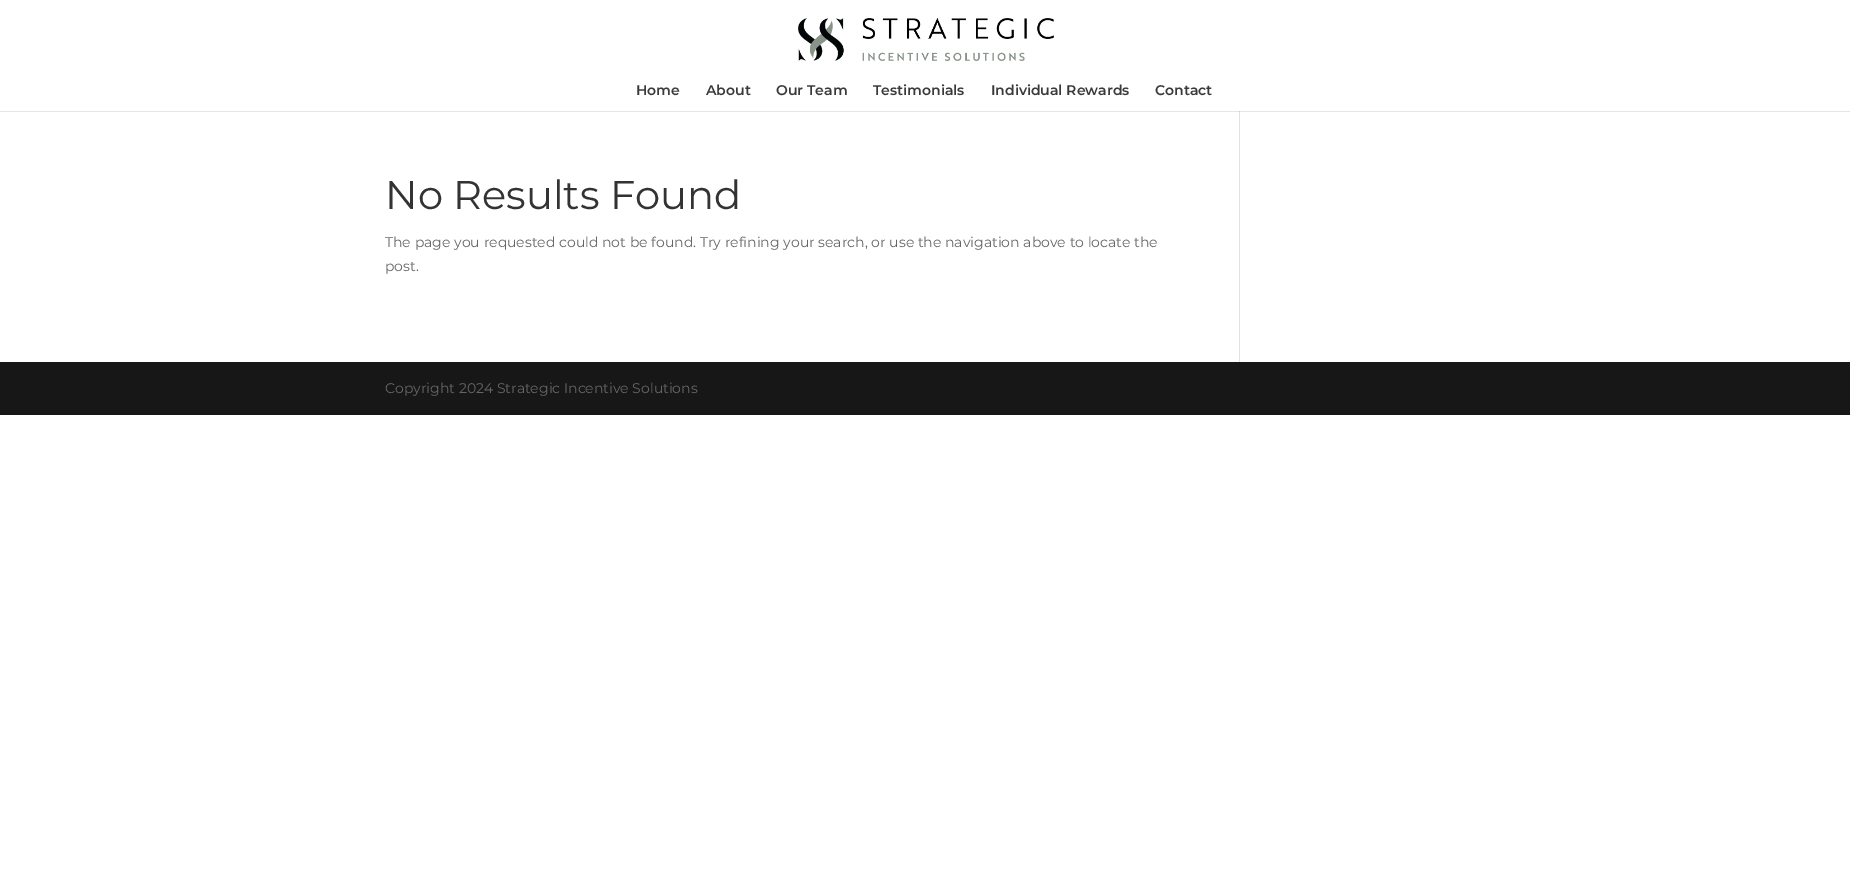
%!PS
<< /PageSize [1850 889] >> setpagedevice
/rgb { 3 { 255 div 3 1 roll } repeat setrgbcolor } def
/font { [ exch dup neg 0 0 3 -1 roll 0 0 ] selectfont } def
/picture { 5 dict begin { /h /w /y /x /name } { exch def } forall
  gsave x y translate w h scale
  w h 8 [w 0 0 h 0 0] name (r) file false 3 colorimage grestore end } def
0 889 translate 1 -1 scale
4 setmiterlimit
255 255 255 rgb
0 0 1850 889 rectfill
230 230 230 rgb
0 111 1850 1 rectfill
(img/1.rgb) 798 18 256 43 picture
[
  [1239 111 1 251 226 226 226]
  [1239 111 1 1 203 203 203]
  [0 362 1850 53 23 23 23]
] { aload pop rgb rectfill } forall
/Montserrat-SemiBold 14 font
58 58 58 rgb
[
  [(Home) 636 95]
  [(About) 706 95]
  [(Our Team) 776 95]
  [(Testimonials) 873 95]
  [(Individual Rewards) 991 95]
  [(Contact) 1155 95]
] { aload pop moveto show } forall
/Montserrat-Regular 40 font
51 51 51 rgb
385 209 moveto (No Results Found) show
/Montserrat-Regular 14 font
102 102 102 rgb
[
  [(The page you requested could not be found. Try refining your search, or use the navigation above to locate the) 385 247]
  [(post.) 385 271]
  [(Copyright 2024 Strategic Incentive Solutions) 385 393]
] { aload pop moveto show } forall
showpage
